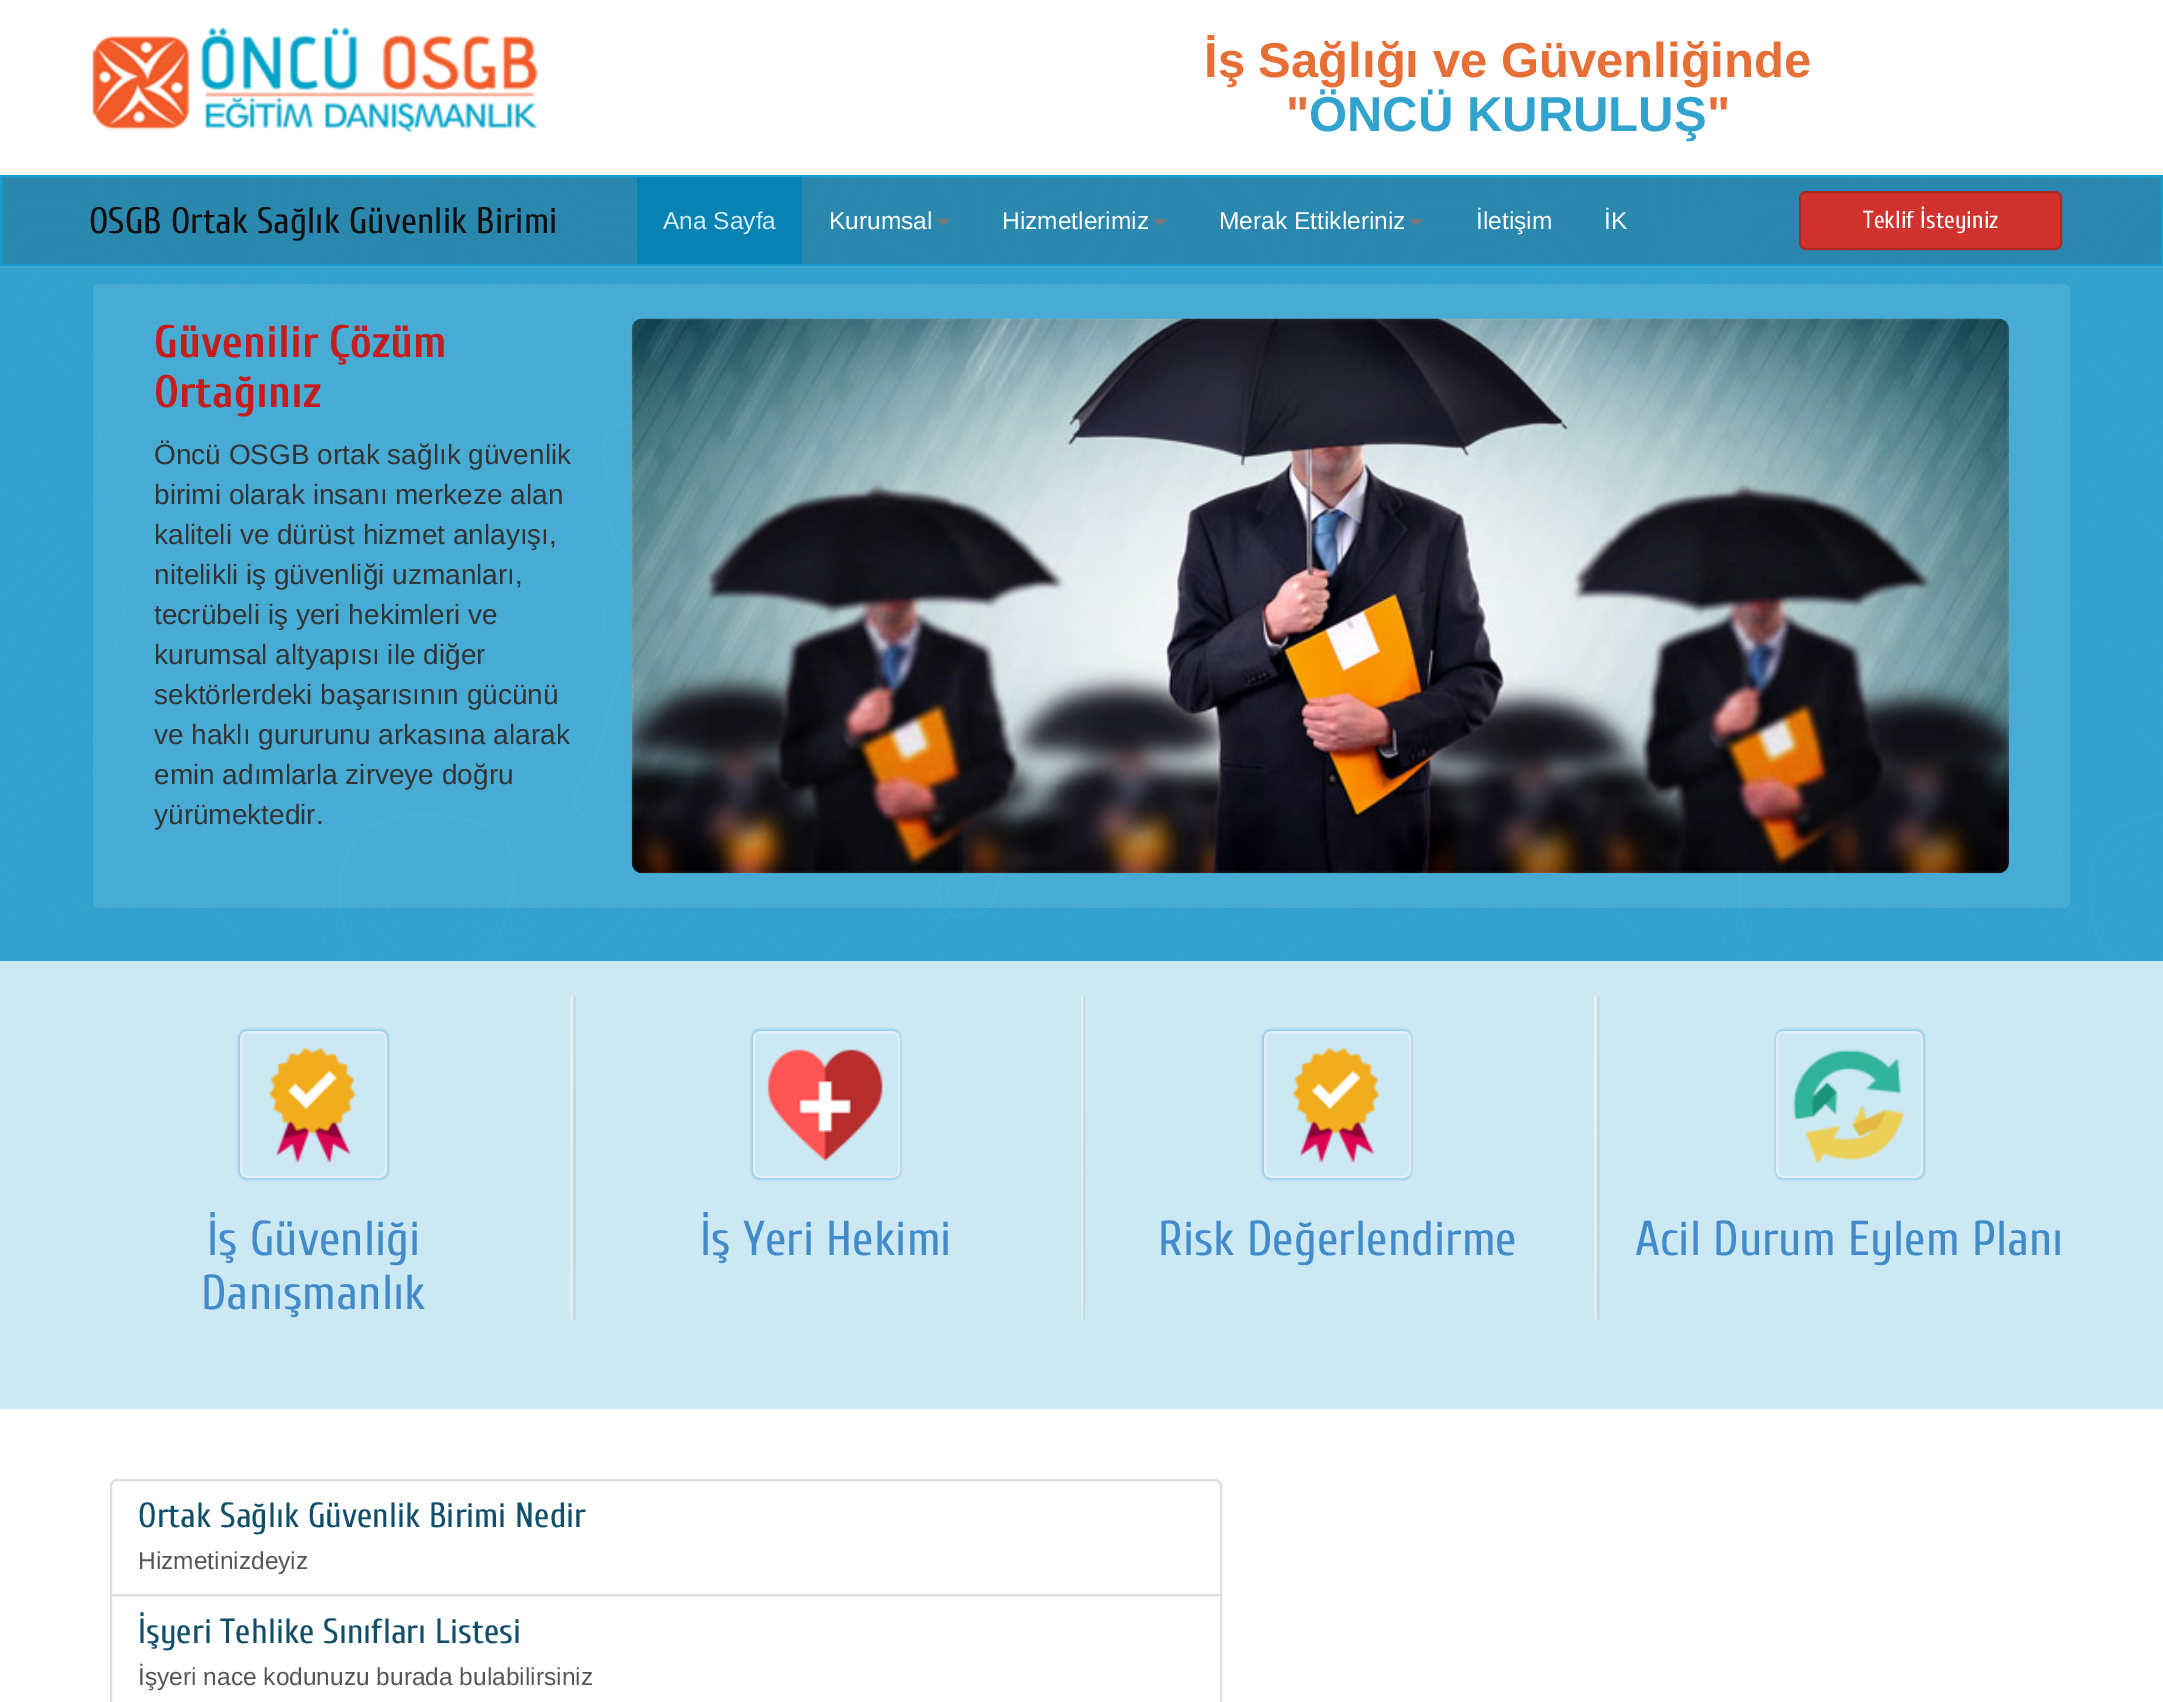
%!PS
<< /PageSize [2163 1702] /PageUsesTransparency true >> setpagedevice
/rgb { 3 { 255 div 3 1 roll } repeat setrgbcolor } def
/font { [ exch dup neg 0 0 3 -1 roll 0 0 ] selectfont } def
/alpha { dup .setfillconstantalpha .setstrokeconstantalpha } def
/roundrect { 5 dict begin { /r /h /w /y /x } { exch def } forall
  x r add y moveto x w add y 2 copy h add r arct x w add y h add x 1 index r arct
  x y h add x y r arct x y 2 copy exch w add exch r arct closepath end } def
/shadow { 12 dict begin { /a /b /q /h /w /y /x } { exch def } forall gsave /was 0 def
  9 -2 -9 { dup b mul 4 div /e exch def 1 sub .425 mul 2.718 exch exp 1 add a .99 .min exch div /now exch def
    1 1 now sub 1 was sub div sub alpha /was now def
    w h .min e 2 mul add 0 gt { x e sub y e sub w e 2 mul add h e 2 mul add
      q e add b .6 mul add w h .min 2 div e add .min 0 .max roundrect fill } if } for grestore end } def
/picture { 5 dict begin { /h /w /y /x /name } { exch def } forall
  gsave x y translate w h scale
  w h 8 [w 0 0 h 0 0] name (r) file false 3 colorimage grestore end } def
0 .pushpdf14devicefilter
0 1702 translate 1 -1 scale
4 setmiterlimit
255 255 255 rgb
0 0 2163 1702 rectfill
(img/1.rgb) 0 177 2163 784 picture
(img/2.rgb) 92 27 446 105 picture
0.1 alpha
0 266 2163 2 rectfill
0.62 alpha
37 120 153 rgb
1 176 moveto 2162 176 lineto 2162 265 lineto 1 265 lineto closepath fill
1 alpha
27 155 206 rgb
2 setlinewidth
1 176 moveto 2162 176 lineto 2162 265 lineto 1 265 lineto closepath stroke
8 130 179 rgb
637 177 165 87 rectfill
119 119 119 rgb
936 219 moveto 950 219 lineto 943 226 lineto closepath fill
1153 219 moveto 1167 219 lineto 1160 226 lineto closepath fill
1409 219 moveto 1423 219 lineto 1416 226 lineto closepath fill
210 50 45 rgb
1800 192 261 57 6 roundrect gsave fill grestore
172 41 37 rgb
stroke
0.1 alpha
255 255 245 rgb
93 284 1977 624 7 roundrect fill
1 alpha
(img/3.rgb) 631 318 1378 556 picture
203 232 243 rgb
0 961 2163 448 rectfill
gsave
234 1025 moveto 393 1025 lineto 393 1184 lineto 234 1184 lineto closepath 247 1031 moveto 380 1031 lineto 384 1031 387 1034 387 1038 curveto 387 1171 lineto 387 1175 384 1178 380 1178 curveto 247 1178 lineto 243 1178 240 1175 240 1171 curveto 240 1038 lineto 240 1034 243 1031 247 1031 curveto closepath eoclip newpath
117 186 231 rgb
238 1029 151 151 9 1 0.6 shadow
grestore
0.53 alpha
247 247 247 rgb
241 1032 145 145 6 roundrect stroke
1 alpha
(img/4.rgb) 269 1047 87 116 picture
(img/5.rgb) 570 995 6 325 picture
gsave
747 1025 moveto 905 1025 lineto 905 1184 lineto 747 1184 lineto closepath 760 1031 moveto 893 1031 lineto 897 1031 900 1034 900 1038 curveto 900 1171 lineto 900 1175 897 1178 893 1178 curveto 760 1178 lineto 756 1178 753 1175 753 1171 curveto 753 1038 lineto 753 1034 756 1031 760 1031 curveto closepath eoclip newpath
117 186 231 rgb
751 1029 150 151 9 1 0.6 shadow
grestore
0.53 alpha
754 1032 145 145 6 roundrect stroke
1 alpha
(img/6.rgb) 767 1049 116 112 picture
(img/7.rgb) 1081 995 4 325 picture
gsave
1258 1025 moveto 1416 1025 lineto 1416 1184 lineto 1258 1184 lineto closepath 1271 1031 moveto 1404 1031 lineto 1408 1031 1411 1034 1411 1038 curveto 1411 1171 lineto 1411 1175 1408 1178 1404 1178 curveto 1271 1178 lineto 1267 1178 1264 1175 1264 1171 curveto 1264 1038 lineto 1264 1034 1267 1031 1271 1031 curveto closepath eoclip newpath
117 186 231 rgb
1262 1029 150 151 9 1 0.6 shadow
grestore
0.53 alpha
1265 1032 145 145 6 roundrect stroke
1 alpha
(img/8.rgb) 1292 1047 88 116 picture
(img/9.rgb) 1594 995 6 325 picture
gsave
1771 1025 moveto 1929 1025 lineto 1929 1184 lineto 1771 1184 lineto closepath 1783 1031 moveto 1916 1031 lineto 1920 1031 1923 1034 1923 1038 curveto 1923 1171 lineto 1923 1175 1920 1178 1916 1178 curveto 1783 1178 lineto 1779 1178 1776 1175 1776 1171 curveto 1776 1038 lineto 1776 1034 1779 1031 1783 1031 curveto closepath eoclip newpath
117 186 231 rgb
1775 1029 150 151 9 1 0.6 shadow
grestore
0.53 alpha
1777 1032 145 145 6 roundrect stroke
1 alpha
(img/10.rgb) 1793 1049 112 115 picture
221 221 221 rgb
117 1480 moveto 1215 1480 lineto 1218.5 1480 1221 1482.5 1221 1486 curveto 1221 1595 lineto 111 1595 lineto 111 1486 lineto 111 1482.5 113.5 1480 117 1480 curveto closepath stroke
111 1595 1110 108 rectstroke
/LiberationSans-Bold 49 font
231 110 53 rgb
1204 77 moveto (İş Sağlığı ve Güvenliğinde) show
1286 131 moveto (") show
50 162 207 rgb
1309 131 moveto (ÖNCÜ KURULUŞ) show
231 110 53 rgb
1707 131 moveto (") show
/Cuprum-Regular 36.75 font
17 17 17 rgb
89 233 moveto (OSGB Ortak Sağlık Güvenlik Birimi) show
/LiberationSans-Regular 24.5 font
211 237 248 rgb
663 229 moveto (Ana Sayfa) show
255 255 255 rgb
[
  [(Kurumsal) 829 229]
  [(Hizmetlerimiz) 1002 229]
  [(Merak Ettikleriniz) 1219 229]
  [(İletişim) 1476 229]
  [(İK) 1604 229]
] { aload pop moveto show } forall
/Cuprum-Regular 24.5 font
1863 228 moveto (Teklif İsteyiniz) show
/Cuprum-Bold 45.5 font
197 29 29 rgb
154 357 moveto (Güvenilir Çözüm) show
154 407 moveto (Ortağınız) show
/LiberationSans-Regular 28 font
51 51 51 rgb
[
  [(Öncü OSGB ortak sağlık güvenlik) 154 464]
  [(birimi olarak insanı merkeze alan) 154 504]
  [(kaliteli ve dürüst hizmet anlayışı,) 154 544]
  [(nitelikli iş güvenliği uzmanları,) 154 584]
  [(tecrübeli iş yeri hekimleri ve) 154 624]
  [(kurumsal altyapısı ile diğer) 154 664]
  [(sektörlerdeki başarısının gücünü) 154 704]
  [(ve haklı gururunu arkasına alarak) 154 744]
  [(emin adımlarla zirveye doğru) 154 784]
  [(yürümektedir.) 154 824]
] { aload pop moveto show } forall
/Cuprum-Regular 49 font
66 139 202 rgb
[
  [(İş Güvenliği) 207 1255]
  [(Danışmanlık) 201 1309]
  [(İş Yeri Hekimi) 700 1255]
  [(Risk Değerlendirme) 1158 1255]
  [(Acil Durum Eylem Planı) 1635 1255]
] { aload pop moveto show } forall
/Cuprum-Regular 35 font
15 79 105 rgb
138 1527 moveto (Ortak Sağlık Güvenlik Birimi Nedir) show
/LiberationSans-Regular 24.5 font
85 85 85 rgb
138 1569 moveto (Hizmetinizdeyiz) show
/Cuprum-Regular 35 font
15 79 105 rgb
138 1643 moveto (İşyeri Tehlike Sınıfları Listesi) show
/LiberationSans-Regular 24.5 font
85 85 85 rgb
138 1685 moveto (İşyeri nace kodunuzu burada bulabilirsiniz) show
.poppdf14devicefilter showpage
